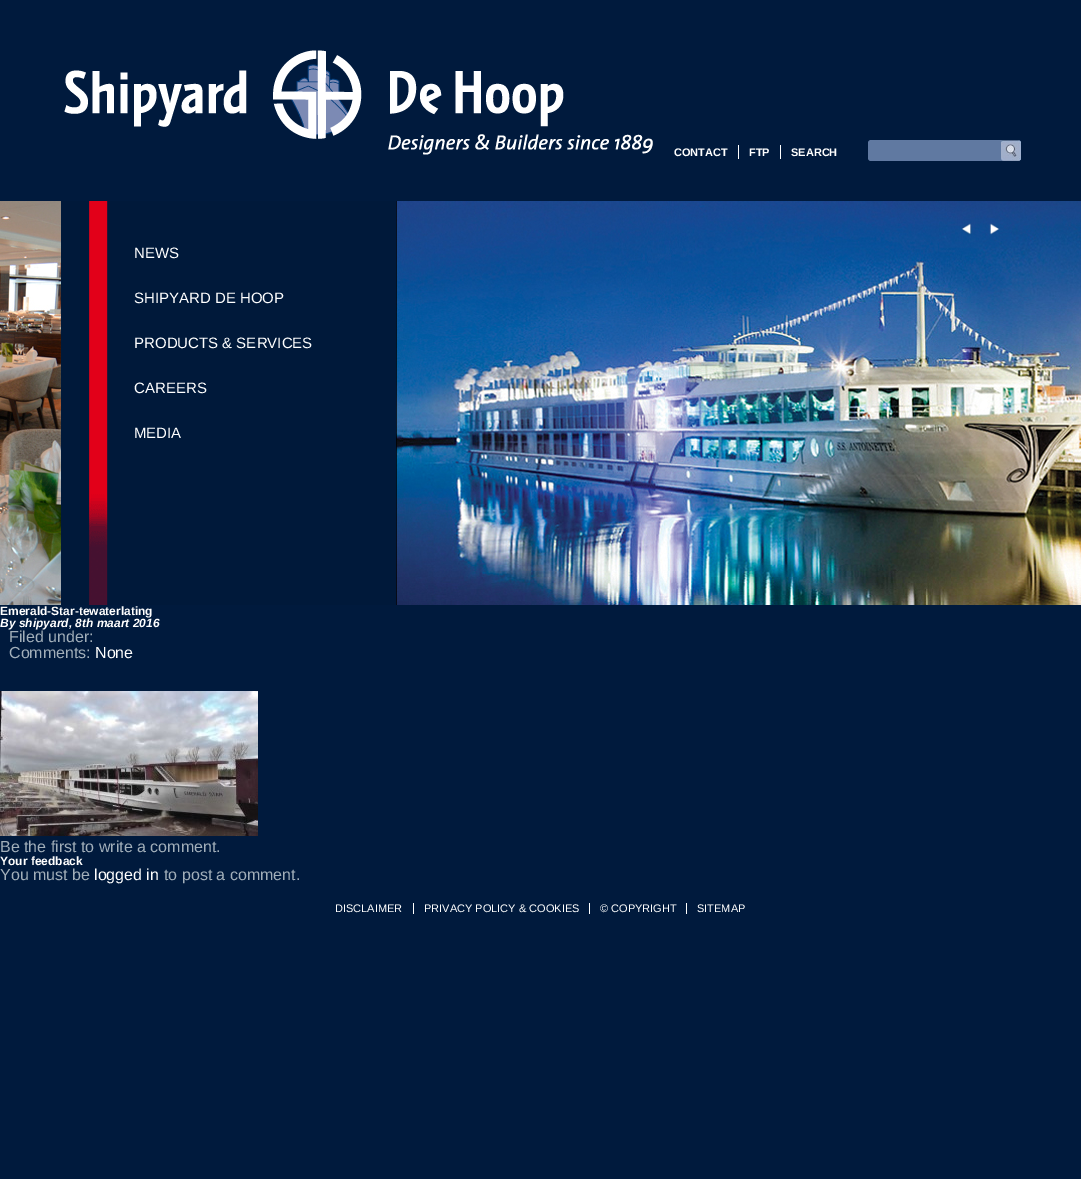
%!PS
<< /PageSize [1081 1179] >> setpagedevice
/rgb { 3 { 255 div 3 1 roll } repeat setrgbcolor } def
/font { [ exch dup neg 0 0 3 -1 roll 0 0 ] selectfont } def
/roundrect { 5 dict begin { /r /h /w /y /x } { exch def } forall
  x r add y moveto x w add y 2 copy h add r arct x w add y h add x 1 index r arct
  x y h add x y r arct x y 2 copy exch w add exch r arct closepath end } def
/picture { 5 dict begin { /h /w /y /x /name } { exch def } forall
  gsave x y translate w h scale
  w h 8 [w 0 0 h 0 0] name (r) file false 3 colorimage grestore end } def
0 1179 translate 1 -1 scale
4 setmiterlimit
0 26 61 rgb
0 0 1081 1179 rectfill
(img/1.rgb) 64 50 589 105 picture
255 255 255 rgb
738 145 1 14 rectfill
780 145 1 14 rectfill
96 121 161 rgb
868 140 153 21 3 roundrect fill
(img/2.rgb) 1001 140 20 21 picture
(img/3.rgb) 0 201 1081 404 picture
(img/4.rgb) 961 223 11 12 picture
(img/5.rgb) 989 223 11 12 picture
(img/6.rgb) 61 201 28 404 picture
(img/7.rgb) 89 201 308 404 picture
(img/8.rgb) 0 691 258 145 picture
[
  [413 903 1 11 255 255 255]
  [589 903 1 11 255 255 255]
  [686 903 1 11 255 255 255]
] { aload pop rgb rectfill } forall
/LiberationSans-Bold 11 font
[
  [(CONTACT) 674 156]
  [(FTP) 749 156]
  [(SEARCH) 791 156]
] { aload pop moveto show } forall
/LiberationSans-Regular 15 font
[
  [(NEWS) 134 258]
  [(SHIPYARD DE HOOP) 134 303]
  [(PRODUCTS & SERVICES) 134 348]
  [(CAREERS) 134 393]
  [(MEDIA) 134 438]
] { aload pop moveto show } forall
/LiberationSans-Bold 12 font
0 615 moveto (Emerald-Star-tewaterlating) show
/LiberationSans-BoldItalic 12 font
0 627 moveto (By shipyard, 8th maart 2016) show
/LiberationSans-Regular 16 font
162 175 186 rgb
9 642 moveto (Filed under:) show
9 658 moveto (Comments:) show
255 255 255 rgb
95 658 moveto (None) show
162 175 186 rgb
0 852 moveto (Be the first to write a comment.) show
/LiberationSans-Bold 12 font
255 255 255 rgb
0 865 moveto (Your feedback) show
/LiberationSans-Regular 16 font
162 175 186 rgb
0 880 moveto (You must be) show
255 255 255 rgb
94 880 moveto (logged in) show
162 175 186 rgb
164 880 moveto (to post a comment.) show
/LiberationSans-Regular 11 font
255 255 255 rgb
[
  [(DISCLAIMER) 335 912]
  [(PRIVACY POLICY & COOKIES) 424 912]
  [(© COPYRIGHT) 600 912]
  [(SITEMAP) 697 912]
] { aload pop moveto show } forall
showpage
